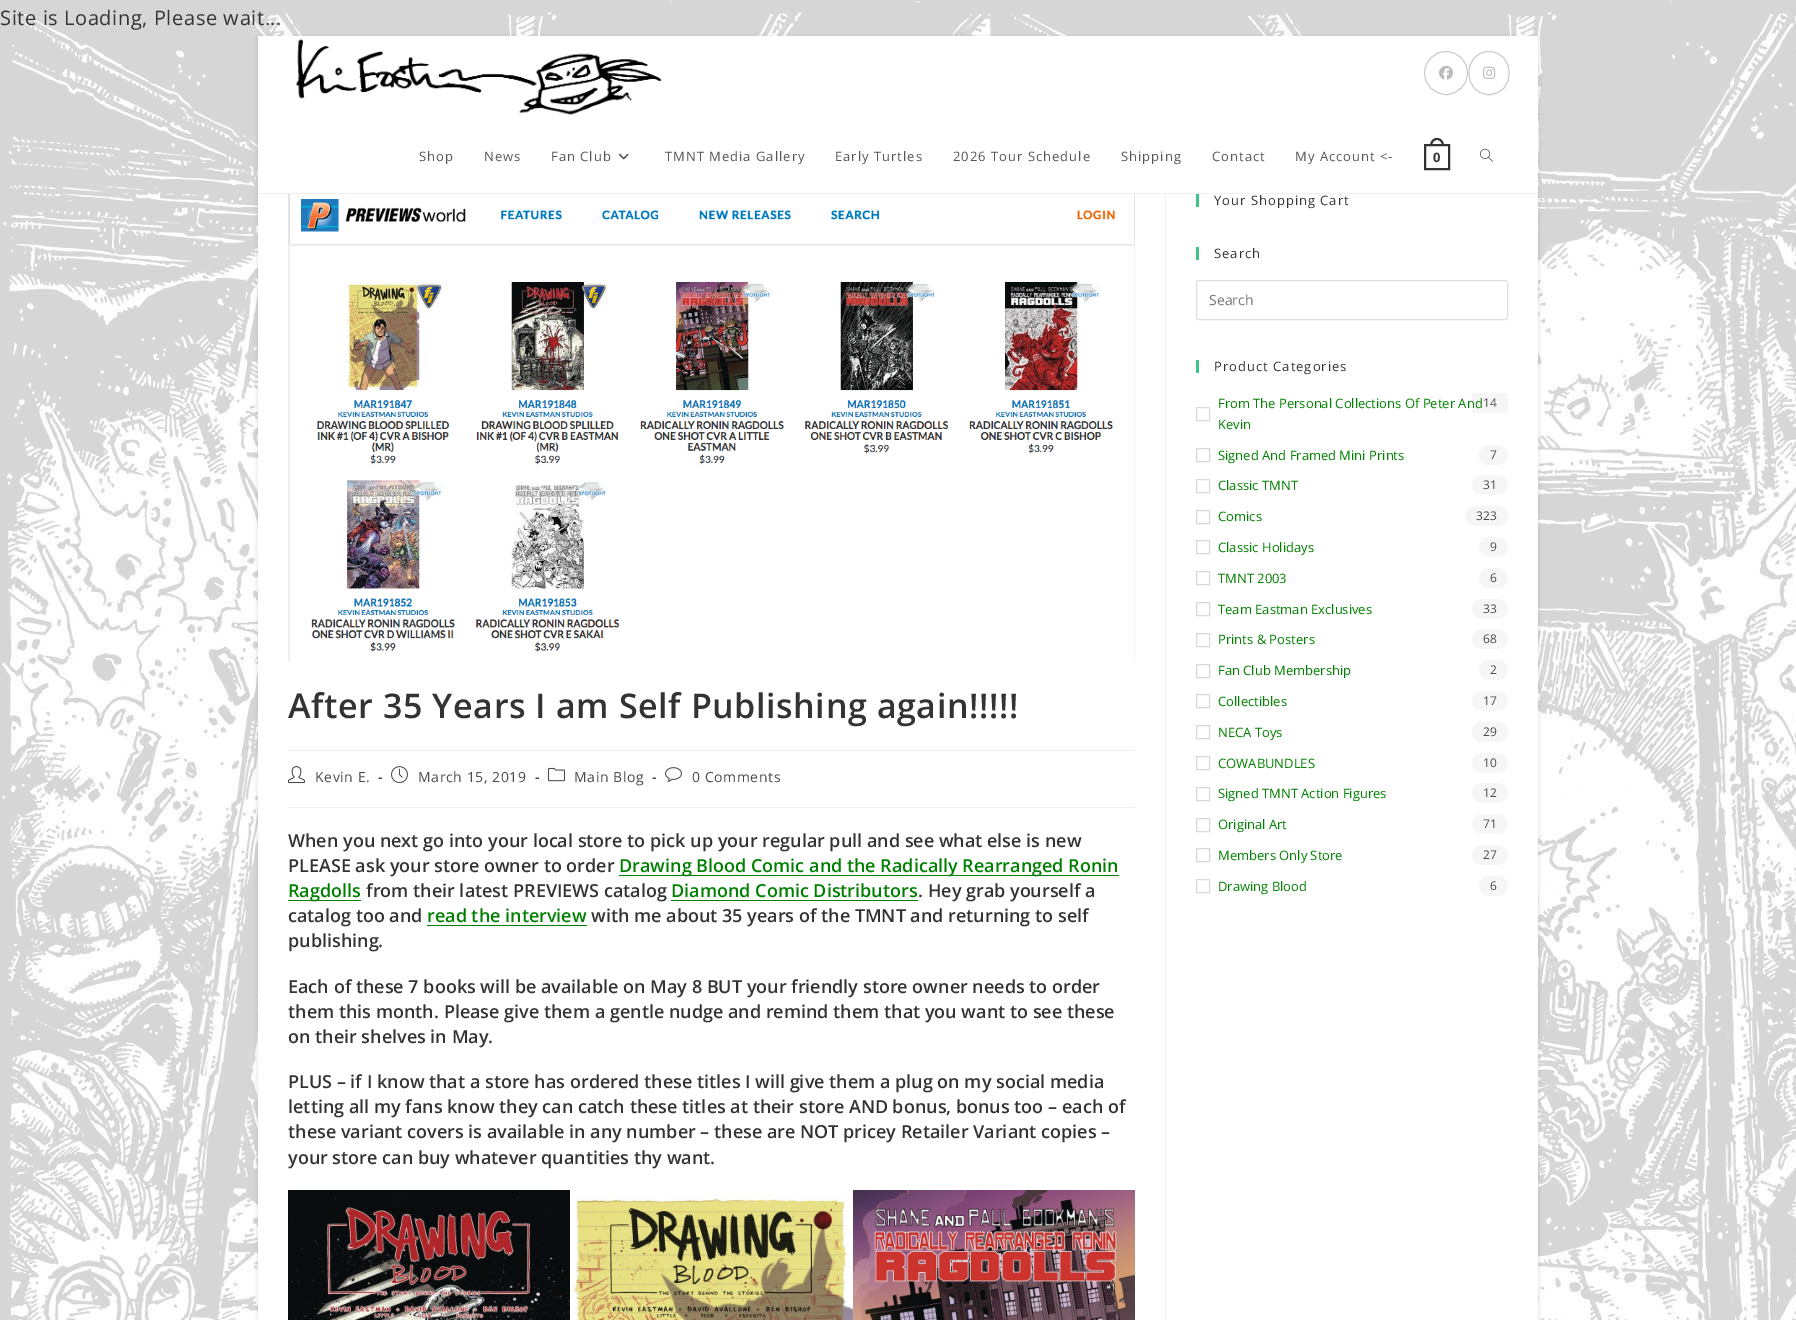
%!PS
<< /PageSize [1796 1320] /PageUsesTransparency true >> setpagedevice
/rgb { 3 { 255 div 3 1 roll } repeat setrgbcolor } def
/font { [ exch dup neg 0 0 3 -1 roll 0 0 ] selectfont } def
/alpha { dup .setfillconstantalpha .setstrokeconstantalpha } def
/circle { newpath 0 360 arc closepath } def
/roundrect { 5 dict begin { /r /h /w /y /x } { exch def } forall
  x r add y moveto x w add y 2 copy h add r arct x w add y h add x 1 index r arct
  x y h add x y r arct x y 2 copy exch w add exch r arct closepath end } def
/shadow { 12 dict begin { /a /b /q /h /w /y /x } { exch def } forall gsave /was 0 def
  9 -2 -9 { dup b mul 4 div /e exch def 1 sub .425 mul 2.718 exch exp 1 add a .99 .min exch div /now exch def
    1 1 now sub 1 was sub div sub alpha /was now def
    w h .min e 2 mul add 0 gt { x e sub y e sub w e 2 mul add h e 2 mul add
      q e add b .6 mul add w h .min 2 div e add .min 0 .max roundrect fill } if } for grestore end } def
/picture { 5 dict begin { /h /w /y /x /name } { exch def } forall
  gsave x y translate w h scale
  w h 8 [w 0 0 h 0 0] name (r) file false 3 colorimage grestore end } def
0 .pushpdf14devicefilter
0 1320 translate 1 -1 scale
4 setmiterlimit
255 255 255 rgb
0 0 1796 1320 rectfill
(img/1.rgb) 0 0 1796 1320 picture
0 0 0 rgb
258 37 1280 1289 0 2 0.15 shadow
255 255 255 rgb
258 36 1280 1284 rectfill
241 241 241 rgb
258 193 1280 1 rectfill
(img/2.rgb) 296 39 366 76 picture
204 204 204 rgb
1446 73 21.5 circle stroke
(img/3.rgb) 1439 65 14 15 picture
1489 51.5 moveto 1516 51.5 1516 94.5 1489 94.5 curveto 1462 94.5 1462 51.5 1489 51.5 curveto closepath stroke
(img/4.rgb) 1483 66 13 13 picture
(img/5.rgb) 618 153 11 7 picture
51 51 51 rgb
2 setlinewidth
1425 145 24 24 rectstroke
1437 138 moveto 1441.5 138 1444 142 1444 146 curveto 1430 146 lineto 1430 142 1432.5 138 1437 138 curveto closepath 1437 140 moveto 1440.5 140 1442 143 1442 146 curveto 1432 146 lineto 1432 143 1433.5 140 1437 140 curveto closepath eofill
(img/6.rgb) 1480 148 13 14 picture
241 241 241 rgb
1165 194 1 1126 rectfill
(img/7.rgb) 288 194 847 468 picture
288 750 847 1 rectfill
288 807 847 1 rectfill
(img/8.rgb) 288 766 17 18 picture
(img/9.rgb) 391 766 17 18 picture
(img/10.rgb) 548 767 17 15 picture
(img/11.rgb) 665 767 17 15 picture
[
  [619 875 500 1 0 128 0]
  [288 900 73 1 0 128 0]
  [671 900 247 1 0 128 0]
  [427 925 160 1 0 128 0]
] { aload pop rgb rectfill } forall
(img/12.rgb) 288 1190 282 130 picture
(img/13.rgb) 571 1194 282 126 picture
(img/14.rgb) 853 1190 282 130 picture
63 195 135 rgb
1196 194 3 13 rectfill
1196 247 3 13 rectfill
221 221 221 rgb
1 setlinewidth
1196.5 280.5 311 39 2.5 roundrect stroke
63 195 135 rgb
1196 360 3 13 rectfill
217 217 217 rgb
1196.5 407.5 13 13 rectstroke
0.05 alpha
84 84 84 rgb
1472 393 36 20 rectfill
1 alpha
217 217 217 rgb
1196.5 448.5 13 13 rectstroke
246 246 246 rgb
1479 445 29 20 10 roundrect fill
217 217 217 rgb
1196.5 479.5 13 13 rectstroke
246 246 246 rgb
1472 475 36 20 10 roundrect fill
217 217 217 rgb
1196.5 510.5 13 13 rectstroke
246 246 246 rgb
1465 506 43 20 10 roundrect fill
217 217 217 rgb
1196.5 540.5 13 13 rectstroke
246 246 246 rgb
1479 537 29 20 10 roundrect fill
217 217 217 rgb
1196.5 571.5 13 13 rectstroke
246 246 246 rgb
1479 568 29 20 10 roundrect fill
217 217 217 rgb
1196.5 602.5 13 13 rectstroke
246 246 246 rgb
1472 599 36 20 10 roundrect fill
217 217 217 rgb
1196.5 633.5 13 13 rectstroke
246 246 246 rgb
1472 629 36 20 10 roundrect fill
217 217 217 rgb
1196.5 664.5 13 13 rectstroke
246 246 246 rgb
1479 660 29 20 10 roundrect fill
217 217 217 rgb
1196.5 694.5 13 13 rectstroke
246 246 246 rgb
1472 691 36 20 10 roundrect fill
217 217 217 rgb
1196.5 725.5 13 13 rectstroke
246 246 246 rgb
1472 722 36 20 10 roundrect fill
217 217 217 rgb
1196.5 756.5 13 13 rectstroke
246 246 246 rgb
1472 753 36 20 10 roundrect fill
217 217 217 rgb
1196.5 787.5 13 13 rectstroke
246 246 246 rgb
1472 783 36 20 10 roundrect fill
217 217 217 rgb
1196.5 818.5 13 13 rectstroke
246 246 246 rgb
1472 814 36 20 10 roundrect fill
217 217 217 rgb
1196.5 848.5 13 13 rectstroke
246 246 246 rgb
1472 845 36 20 10 roundrect fill
217 217 217 rgb
1196.5 879.5 13 13 rectstroke
246 246 246 rgb
1479 876 29 20 10 roundrect fill
/OpenSans-Regular 20 font
51 51 51 rgb
0 25 moveto 0.6 0 (Site is Loading, Please wait...) ashow
/OpenSans-Regular 13 font
85 85 85 rgb
419 161 moveto 1 0 (Shop) ashow
484 161 moveto 1 0 (News) ashow
551 161 moveto 1 0 (Fan Club) ashow
665 161 moveto 1 0 (TMNT Media Gallery) ashow
835 161 moveto 1 0 (Early Turtles) ashow
953 161 moveto 1 0 (2026 Tour Schedule) ashow
1121 161 moveto 1 0 (Shipping) ashow
1212 161 moveto 1 0 (Contact) ashow
1295 161 moveto 1 0 (My Account <-) ashow
/OpenSans-Bold 13 font
51 51 51 rgb
1433 162 moveto (0) show
/OpenSans-SemiBold 34 font
288 718 moveto 0.6 0 (After 35 Years I am Self Publishing again!!!!!) ashow
/OpenSans-Regular 14 font
74 74 74 rgb
315 782 moveto 0.6 0 (Kevin E.) ashow
/OpenSans-Bold 14 font
378 782 moveto 0.6 0 (-) ashow
/OpenSans-Regular 14 font
418 782 moveto 0.6 0 (March 15, 2019) ashow
/OpenSans-Bold 14 font
535 782 moveto 0.6 0 (-) ashow
/OpenSans-Regular 14 font
574 782 moveto 0.6 0 (Main Blog) ashow
/OpenSans-Bold 14 font
652 782 moveto 0.6 0 (-) ashow
/OpenSans-Regular 14 font
692 782 moveto 0.6 0 (0 Comments) ashow
/OpenSans-SemiBold 18 font
51 51 51 rgb
288 847 moveto (When you next go into your local store to pick up your regular pull and see what else is new) show
288 872 moveto (PLEASE ask your store owner to order) show
0 128 0 rgb
619 872 moveto (Drawing Blood Comic and the Radically Rearranged Ronin) show
288 897 moveto (Ragdolls) show
51 51 51 rgb
366 897 moveto (from their latest PREVIEWS catalog) show
0 128 0 rgb
671 897 moveto (Diamond Comic Distributors) show
51 51 51 rgb
918 897 moveto (. Hey grab yourself a) show
288 922 moveto (catalog too and) show
0 128 0 rgb
427 922 moveto (read the interview) show
51 51 51 rgb
[
  [(with me about 35 years of the TMNT and returning to self) 591 922]
  [(publishing.) 288 947]
  [(Each of these 7 books will be available on May 8 BUT your friendly store owner needs to order) 288 993]
  [(them this month. Please give them a gentle nudge and remind them that you want to see these) 288 1018]
  [(on their shelves in May.) 288 1043]
  [(PLUS – if I know that a store has ordered these titles I will give them a plug on my social media) 288 1088]
  [(letting all my fans know they can catch these titles at their store AND bonus, bonus too – each of) 288 1113]
  [(these variant covers is available in any number – these are NOT pricey Retailer Variant copies –) 288 1138]
  [(your store can buy whatever quantities thy want.) 288 1164]
] { aload pop moveto show } forall
/OpenSans-Regular 13 font
1214 205 moveto 1 0 (Your Shopping Cart) ashow
1214 258 moveto 1 0 (Search) ashow
/OpenSans-Regular 14 font
117 117 117 rgb
1209 305 moveto (Search) show
/OpenSans-Regular 13 font
51 51 51 rgb
1214 371 moveto 1 0 (Product Categories) ashow
0 128 0 rgb
1218 408 moveto (From The Personal Collections Of Peter And) show
1218 429 moveto (Kevin) show
/OpenSans-Regular 12 font
74 74 74 rgb
1483 407 moveto (14) show
/OpenSans-Regular 13 font
0 128 0 rgb
1218 460 moveto (Signed And Framed Mini Prints) show
/OpenSans-Regular 12 font
74 74 74 rgb
1490 459 moveto (7) show
/OpenSans-Regular 13 font
0 128 0 rgb
1218 490 moveto (Classic TMNT) show
/OpenSans-Regular 12 font
74 74 74 rgb
1483 489 moveto (31) show
/OpenSans-Regular 13 font
0 128 0 rgb
1218 521 moveto (Comics) show
/OpenSans-Regular 12 font
74 74 74 rgb
1476 520 moveto (323) show
/OpenSans-Regular 13 font
0 128 0 rgb
1218 552 moveto (Classic Holidays) show
/OpenSans-Regular 12 font
74 74 74 rgb
1490 551 moveto (9) show
/OpenSans-Regular 13 font
0 128 0 rgb
1218 583 moveto (TMNT 2003) show
/OpenSans-Regular 12 font
74 74 74 rgb
1490 582 moveto (6) show
/OpenSans-Regular 13 font
0 128 0 rgb
1218 614 moveto (Team Eastman Exclusives) show
/OpenSans-Regular 12 font
74 74 74 rgb
1483 613 moveto (33) show
/OpenSans-Regular 13 font
0 128 0 rgb
1218 644 moveto (Prints & Posters) show
/OpenSans-Regular 12 font
74 74 74 rgb
1483 643 moveto (68) show
/OpenSans-Regular 13 font
0 128 0 rgb
1218 675 moveto (Fan Club Membership) show
/OpenSans-Regular 12 font
74 74 74 rgb
1490 674 moveto (2) show
/OpenSans-Regular 13 font
0 128 0 rgb
1218 706 moveto (Collectibles) show
/OpenSans-Regular 12 font
74 74 74 rgb
1483 705 moveto (17) show
/OpenSans-Regular 13 font
0 128 0 rgb
1218 737 moveto (NECA Toys) show
/OpenSans-Regular 12 font
74 74 74 rgb
1483 736 moveto (29) show
/OpenSans-Regular 13 font
0 128 0 rgb
1218 768 moveto (COWABUNDLES) show
/OpenSans-Regular 12 font
74 74 74 rgb
1483 767 moveto (10) show
/OpenSans-Regular 13 font
0 128 0 rgb
1218 798 moveto (Signed TMNT Action Figures) show
/OpenSans-Regular 12 font
74 74 74 rgb
1483 797 moveto (12) show
/OpenSans-Regular 13 font
0 128 0 rgb
1218 829 moveto (Original Art) show
/OpenSans-Regular 12 font
74 74 74 rgb
1483 828 moveto (71) show
/OpenSans-Regular 13 font
0 128 0 rgb
1218 860 moveto (Members Only Store) show
/OpenSans-Regular 12 font
74 74 74 rgb
1483 859 moveto (27) show
/OpenSans-Regular 13 font
0 128 0 rgb
1218 891 moveto (Drawing Blood) show
/OpenSans-Regular 12 font
74 74 74 rgb
1490 890 moveto (6) show
.poppdf14devicefilter showpage
